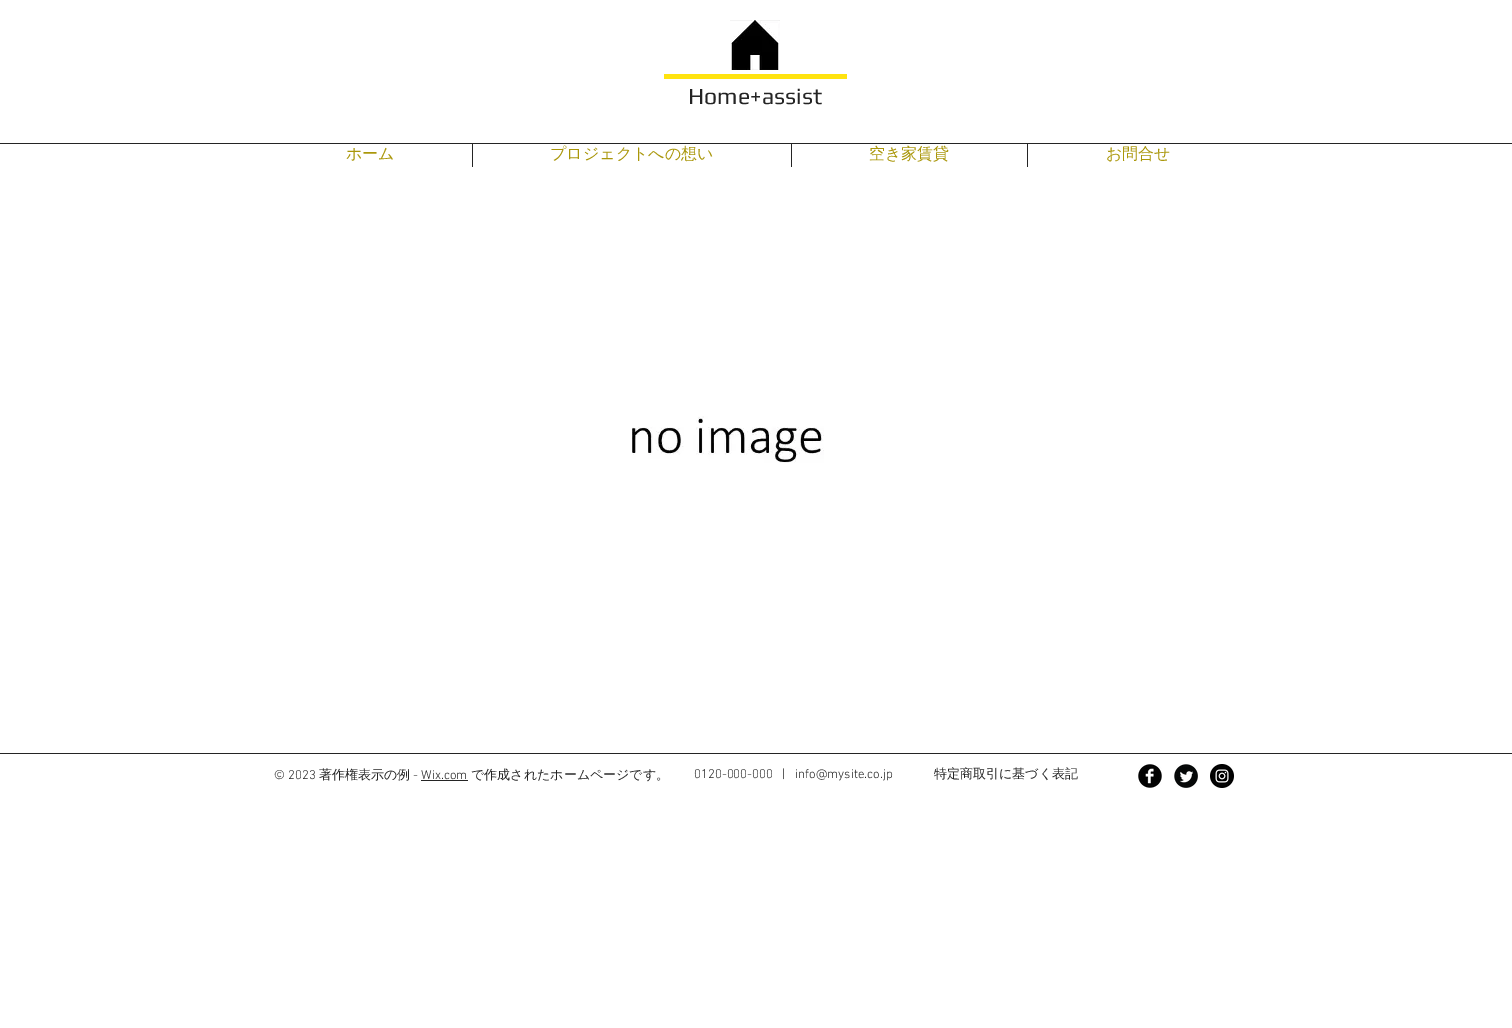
%!PS
<< /PageSize [1512 1028] >> setpagedevice
/rgb { 3 { 255 div 3 1 roll } repeat setrgbcolor } def
/font { [ exch dup neg 0 0 3 -1 roll 0 0 ] selectfont } def
/picture { 5 dict begin { /h /w /y /x /name } { exch def } forall
  gsave x y translate w h scale
  w h 8 [w 0 0 h 0 0] name (r) file false 3 colorimage grestore end } def
0 1028 translate 1 -1 scale
4 setmiterlimit
255 255 255 rgb
0 0 1512 1028 rectfill
(img/1.rgb) 730 20 50 50 picture
[
  [664 74 183 5 255 227 15]
  [0 143 1512 1 36 36 36]
  [472 144 1 23 36 36 36]
  [791 144 1 23 36 36 36]
  [1027 144 1 23 36 36 36]
] { aload pop rgb rectfill } forall
(img/2.rgb) 632 416 192 47 picture
0 753 1512 1 rectfill
421 780 47 1 rectfill
(img/3.rgb) 1138 764 24 24 picture
(img/4.rgb) 1174 764 24 24 picture
(img/5.rgb) 1210 764 24 24 picture
/Play-Regular 23 font
688 104 moveto (Home+assist) show
/WenQuanYiZenHei-Medium 16 font
170 151 10 rgb
[
  [(ホーム) 346 159]
  [(プロジェクトへの想い) 550 159]
  [(空き家賃貸) 869 159]
  [(お問合せ) 1106 159]
] { aload pop moveto show } forall
/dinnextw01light-Light 13 font
36 36 36 rgb
274 779 moveto (© 2023) show
/WenQuanYiZenHei-Medium 13 font
319 779 moveto (著作権表示の例) show
/dinnextw01light-Light 13 font
413 779 moveto (- Wix.com) show
/WenQuanYiZenHei-Medium 13 font
471 779 moveto (で作成されたホームページです。) show
/dinnextw01light-Light 13 font
694 778 moveto (0120-000-000   |) show
795 778 moveto (info@mysite.co.jp) show
/WenQuanYiZenHei-Medium 13 font
934 778 moveto (特定商取引に基づく表記) show
showpage
